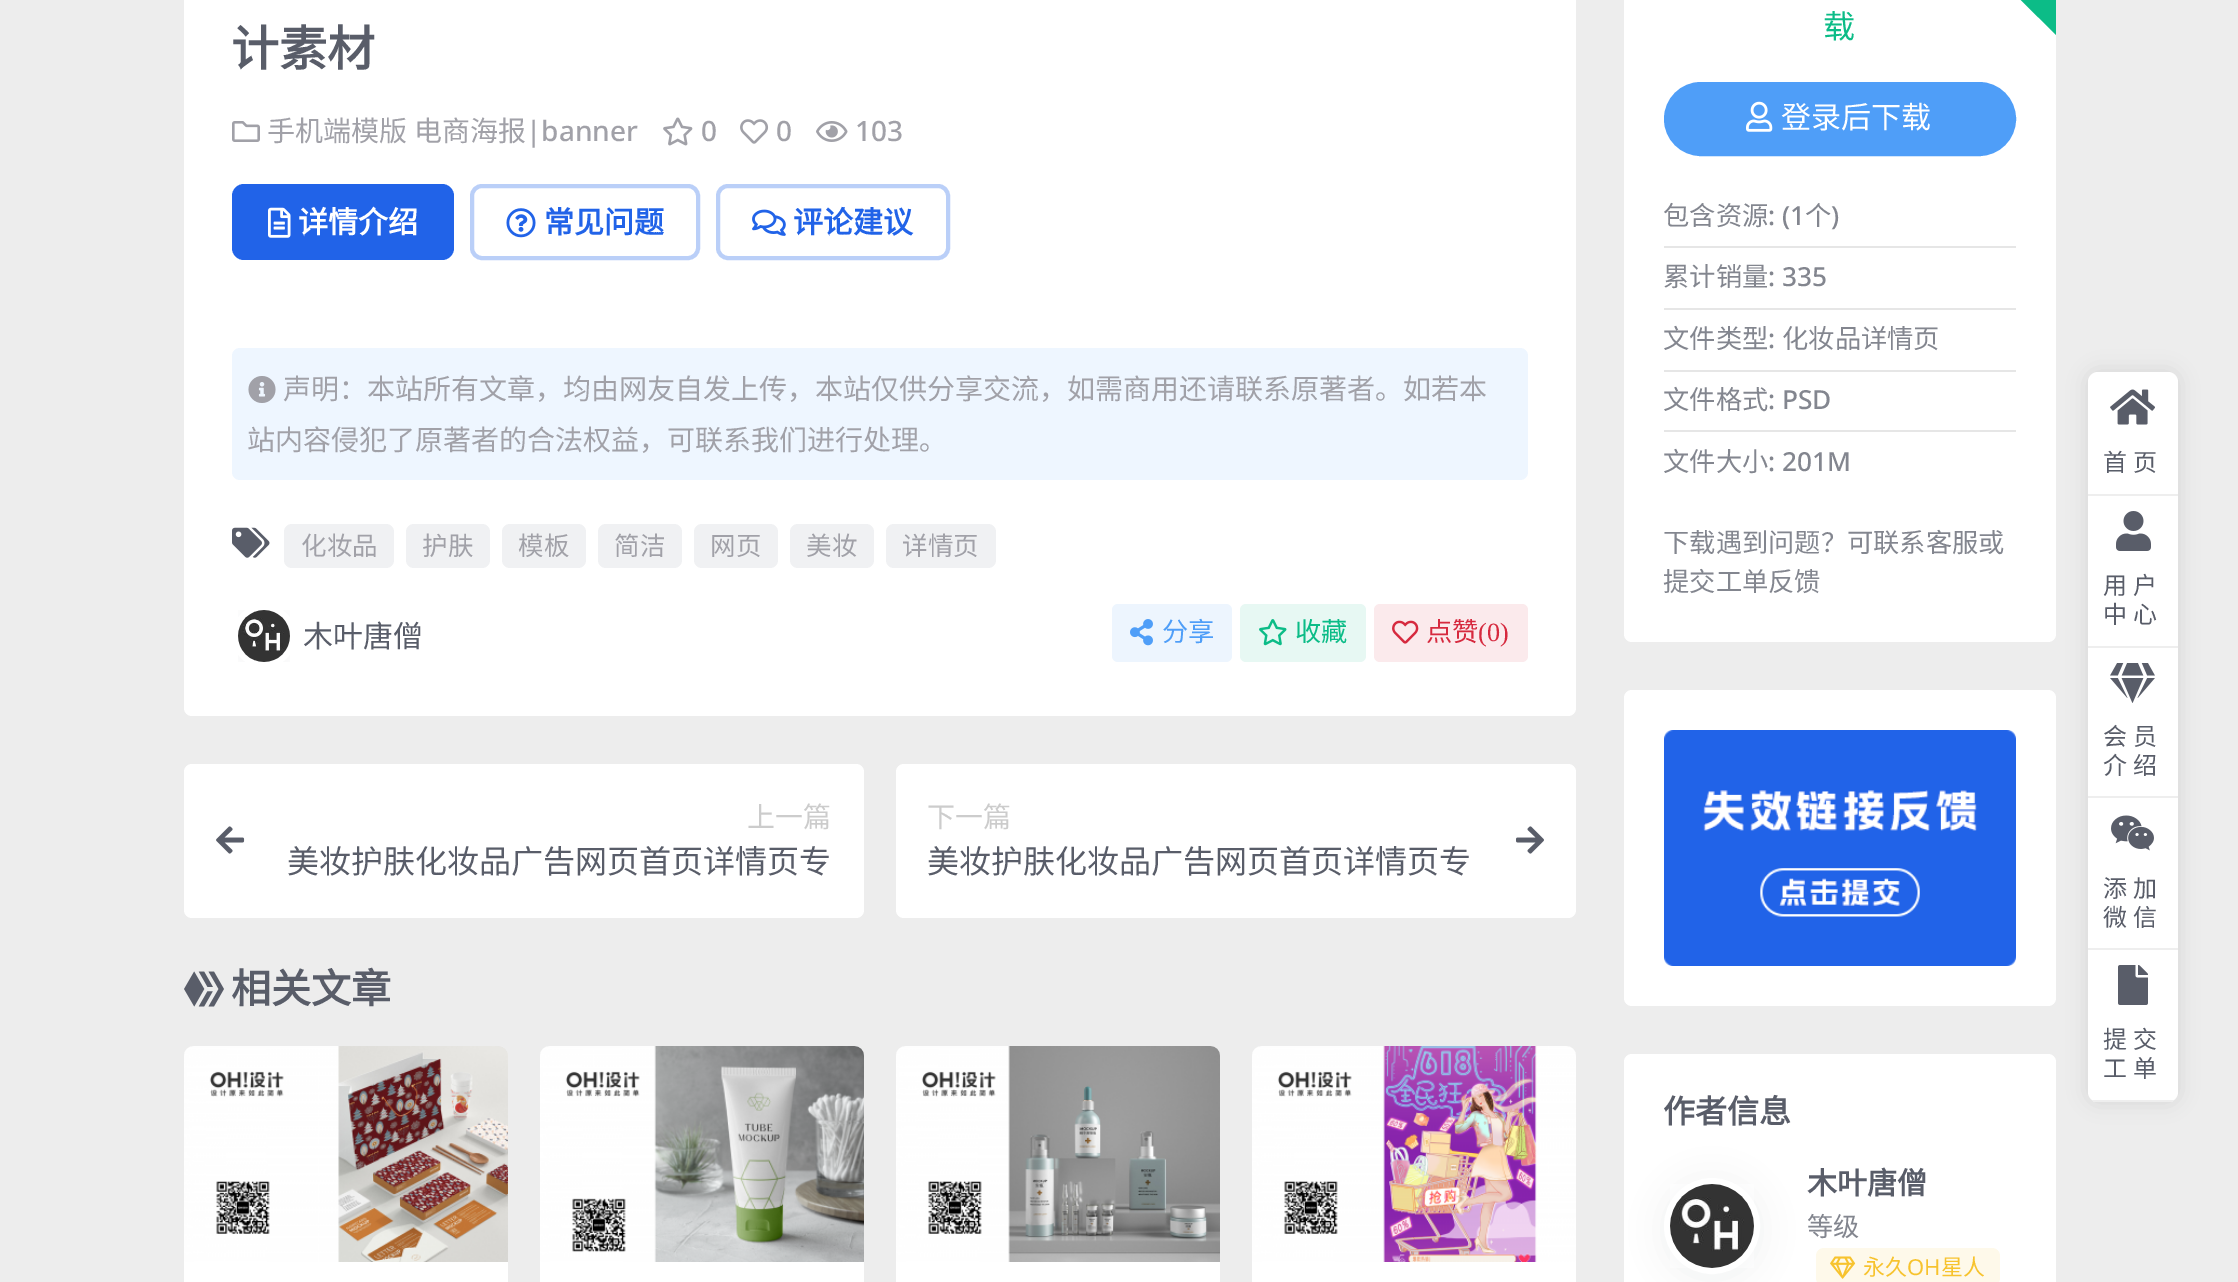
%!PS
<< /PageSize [2238 1282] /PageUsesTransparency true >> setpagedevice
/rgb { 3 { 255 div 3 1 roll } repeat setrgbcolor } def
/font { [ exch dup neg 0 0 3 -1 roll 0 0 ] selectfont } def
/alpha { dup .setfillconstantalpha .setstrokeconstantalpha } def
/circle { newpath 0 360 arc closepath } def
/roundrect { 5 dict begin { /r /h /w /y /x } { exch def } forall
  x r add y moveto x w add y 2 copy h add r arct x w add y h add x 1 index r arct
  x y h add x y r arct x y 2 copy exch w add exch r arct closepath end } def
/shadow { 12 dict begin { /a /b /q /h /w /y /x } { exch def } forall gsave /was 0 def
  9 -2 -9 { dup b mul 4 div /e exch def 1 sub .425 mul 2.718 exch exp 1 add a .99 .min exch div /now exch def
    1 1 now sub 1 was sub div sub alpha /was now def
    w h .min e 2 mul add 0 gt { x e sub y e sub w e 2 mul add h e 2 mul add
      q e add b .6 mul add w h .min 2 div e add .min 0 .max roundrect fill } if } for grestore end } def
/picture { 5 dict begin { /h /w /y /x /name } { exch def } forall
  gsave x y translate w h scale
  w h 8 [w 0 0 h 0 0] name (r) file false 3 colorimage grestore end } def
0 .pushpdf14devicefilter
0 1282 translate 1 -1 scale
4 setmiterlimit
237 237 237 rgb
0 0 2238 1282 rectfill
255 255 255 rgb
184 -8 1392 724 8 roundrect fill
(img/1.rgb) 232 121 28 21 picture
(img/2.rgb) 663 117 30 29 picture
(img/3.rgb) 740 119 29 25 picture
(img/4.rgb) 816 121 32 21 picture
33 99 232 rgb
232 184 222 76 12 roundrect fill
(img/5.rgb) 268 207 23 31 picture
186 207 248 rgb
4 setlinewidth
472 186 226 72 10 roundrect stroke
(img/6.rgb) 506 208 30 30 picture
718 186 230 72 10 roundrect stroke
(img/7.rgb) 752 209 34 27 picture
238 246 255 rgb
232 348 1296 132 8 roundrect fill
(img/8.rgb) 248 376 28 27 picture
(img/9.rgb) 232 527 38 31 picture
240 241 243 rgb
284 524 110 44 8 roundrect fill
406 524 84 44 8 roundrect fill
502 524 84 44 8 roundrect fill
598 524 84 44 8 roundrect fill
694 524 84 44 8 roundrect fill
790 524 84 44 8 roundrect fill
886 524 110 44 8 roundrect fill
(img/10.rgb) 238 610 52 52 picture
237 245 254 rgb
1112 604 120 58 6 roundrect fill
(img/11.rgb) 1130 619 23 27 picture
231 248 243 rgb
1240 604 126 58 6 roundrect fill
(img/12.rgb) 1259 619 28 27 picture
251 234 236 rgb
1374 604 154 58 6 roundrect fill
(img/13.rgb) 1392 620 27 24 picture
255 255 255 rgb
184 764 680 154 8 roundrect fill
(img/14.rgb) 216 826 29 28 picture
896 764 680 154 8 roundrect fill
(img/15.rgb) 1516 826 28 28 picture
(img/16.rgb) 184 971 40 36 picture
184 1046 324 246 10 roundrect fill
(img/17.rgb) 184 1046 324 216 picture
540 1046 324 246 10 roundrect fill
(img/18.rgb) 540 1046 324 216 picture
896 1046 324 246 10 roundrect fill
(img/19.rgb) 896 1046 324 216 picture
1252 1046 324 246 10 roundrect fill
(img/20.rgb) 1252 1046 324 216 picture
1624 -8 432 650 8 roundrect fill
79 158 248 rgb
1665 83 350 72 36 roundrect gsave fill grestore
2 setlinewidth
stroke
(img/21.rgb) 1746 101 27 31 picture
12 188 135 rgb
2056 -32 moveto 2056 35 lineto 1935 -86 lineto 2003 -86 lineto closepath fill
[
  [1664 246 352 2 230 230 230]
  [1664 308 352 2 230 230 230]
  [1664 370 352 2 230 230 230]
  [1664 430 352 2 230 230 230]
] { aload pop rgb rectfill } forall
255 255 255 rgb
1624 690 432 316 8 roundrect fill
(img/22.rgb) 1664 730 352 236 picture
1624 1054 432 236 8 roundrect fill
89 93 105 rgb
1664 1182 96 96 48 16 0.07 shadow
255 255 255 rgb
6 setlinewidth
1712 1226 45 circle stroke
(img/23.rgb) 1670 1184 84 84 picture
254 249 234 rgb
1816 1248 184 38 8 roundrect fill
(img/24.rgb) 1830 1256 26 23 picture
0 0 0 rgb
2088 372 90 730 10 10 0.1 shadow
255 255 255 rgb
2098 372 moveto 2168 372 lineto 2173.5 372 2178 376.5 2178 382 curveto 2178 496 lineto 2088 496 lineto 2088 382 lineto 2088 376.5 2092.5 372 2098 372 curveto closepath fill
238 238 238 rgb
2088 494 90 2 rectfill
(img/25.rgb) 2110 389 45 36 picture
255 255 255 rgb
2088 496 90 150 rectfill
238 238 238 rgb
2088 646 90 2 rectfill
(img/26.rgb) 2116 511 35 40 picture
255 255 255 rgb
2088 648 90 148 rectfill
238 238 238 rgb
2088 796 90 2 rectfill
(img/27.rgb) 2110 663 45 40 picture
255 255 255 rgb
2088 798 90 150 rectfill
238 238 238 rgb
2088 948 90 2 rectfill
(img/28.rgb) 2111 815 43 36 picture
255 255 255 rgb
2088 950 moveto 2178 950 lineto 2178 1092 lineto 2178 1097.5 2173.5 1102 2168 1102 curveto 2098 1102 lineto 2092.5 1102 2088 1097.5 2088 1092 curveto closepath fill
gsave
2088 372 90 730 10 roundrect clip newpath
238 238 238 rgb
2088 1100 90 2 rectfill
grestore
(img/29.rgb) 2118 965 30 40 picture
/NotoSansCJKSC-Bold 48 font
89 93 105 rgb
231 66 moveto (计素材) show
/NotoSansCJKSC-Regular 28 font
161 161 168 rgb
267 141 moveto (手机端模版) show
414 141 moveto (电商海报) show
/NotoSans-Medium 28 font
[
  [(|banner) 526 141]
  [(0) 701 141]
  [(0) 776 141]
  [(103) 855 141]
] { aload pop moveto show } forall
/NotoSansCJKSC-Bold 30 font
255 255 255 rgb
298 233 moveto (详情介绍) show
33 99 232 rgb
544 233 moveto (常见问题) show
793 233 moveto (评论建议) show
/NotoSansCJKSC-Regular 28 font
161 161 168 rgb
283 399 moveto (声明：本站所有文章，均由网友自发上传，本站仅供分享交流，如需商用还请联系原著者。如若本) show
247 450 moveto (站内容侵犯了原著者的合法权益，可联系我们进行处理。) show
/NotoSansCJKSC-Regular 25.5 font
[
  [(化妆品) 301 555]
  [(护肤) 422 555]
  [(模板) 518 555]
  [(简洁) 614 555]
  [(网页) 710 555]
  [(美妆) 806 555]
  [(详情页) 902 555]
] { aload pop moveto show } forall
/NotoSansCJKSC-Regular 30 font
89 93 105 rgb
303 647 moveto (木叶唐僧) show
/NotoSansCJKSC-Regular 26.25 font
79 158 248 rgb
1162 641 moveto (分享) show
12 188 135 rgb
1295 641 moveto (收藏) show
214 41 62 rgb
1426 641 moveto (点赞) show
/LiberationSerif-Regular 26.25 font
1478 641 moveto (\(0\)) show
/NotoSansCJKSC-Regular 28 font
204 204 204 rgb
747 827 moveto (上一篇) show
/NotoSansCJKSC-Regular 32 font
89 93 105 rgb
287 873 moveto (美妆护肤化妆品广告网页首页详情页专) show
/NotoSansCJKSC-Regular 28 font
204 204 204 rgb
927 827 moveto (下一篇) show
/NotoSansCJKSC-Regular 32 font
89 93 105 rgb
927 873 moveto (美妆护肤化妆品广告网页首页详情页专) show
/NotoSansCJKSC-Bold 40 font
231 1003 moveto (相关文章) show
/NotoSansCJKSC-Regular 32 font
12 188 135 rgb
1823 38 moveto (载) show
/NotoSansCJKSC-Regular 30 font
255 255 255 rgb
1781 128 moveto (登录后下载) show
/NotoSansCJKSC-Regular 26.25 font
131 134 143 rgb
1663 225 moveto (包含资源) show
/NotoSans-Medium 26.25 font
1768 225 moveto (: \(1) show
/NotoSansCJKSC-Regular 26.25 font
1805 225 moveto (个) show
/NotoSans-Medium 26.25 font
1831 225 moveto (\)) show
/NotoSansCJKSC-Regular 26.25 font
1663 286 moveto (累计销量) show
/NotoSans-Medium 26.25 font
1768 286 moveto (: 335) show
/NotoSansCJKSC-Regular 26.25 font
1663 348 moveto (文件类型) show
/NotoSans-Medium 26.25 font
1768 348 moveto (:) show
/NotoSansCJKSC-Regular 26.25 font
1782 348 moveto (化妆品详情页) show
1663 409 moveto (文件格式) show
/NotoSans-Medium 26.25 font
1768 409 moveto (: PSD) show
/NotoSansCJKSC-Regular 26.25 font
1663 471 moveto (文件大小) show
/NotoSans-Medium 26.25 font
1768 471 moveto (: 201M) show
/NotoSansCJKSC-Regular 26.25 font
1663 552 moveto (下载遇到问题？可联系客服或) show
1663 591 moveto (提交工单反馈) show
/NotoSansCJKSC-Bold 32 font
89 93 105 rgb
1663 1123 moveto (作者信息) show
/NotoSansCJKSC-Bold 30 font
1807 1194 moveto (木叶唐僧) show
/NotoSansCJKSC-Regular 26.25 font
131 134 143 rgb
1807 1236 moveto (等级) show
/NotoSansCJKSC-Regular 22 font
247 195 46 rgb
1863 1275 moveto (永久) show
/NotoSans-Regular 22 font
1907 1275 moveto (OH) show
/NotoSansCJKSC-Regular 22 font
1941 1275 moveto (星人) show
/NotoSansCJKSC-Regular 24 font
89 93 105 rgb
2103 471 moveto 6 0 (首页) ashow
2103 594 moveto 6 0 (用户) ashow
2103 623 moveto 6 0 (中心) ashow
2103 745 moveto 6 0 (会员) ashow
2103 774 moveto 6 0 (介绍) ashow
2103 897 moveto 6 0 (添加) ashow
2103 926 moveto 6 0 (微信) ashow
2103 1048 moveto 6 0 (提交) ashow
2103 1077 moveto 6 0 (工单) ashow
.poppdf14devicefilter showpage
